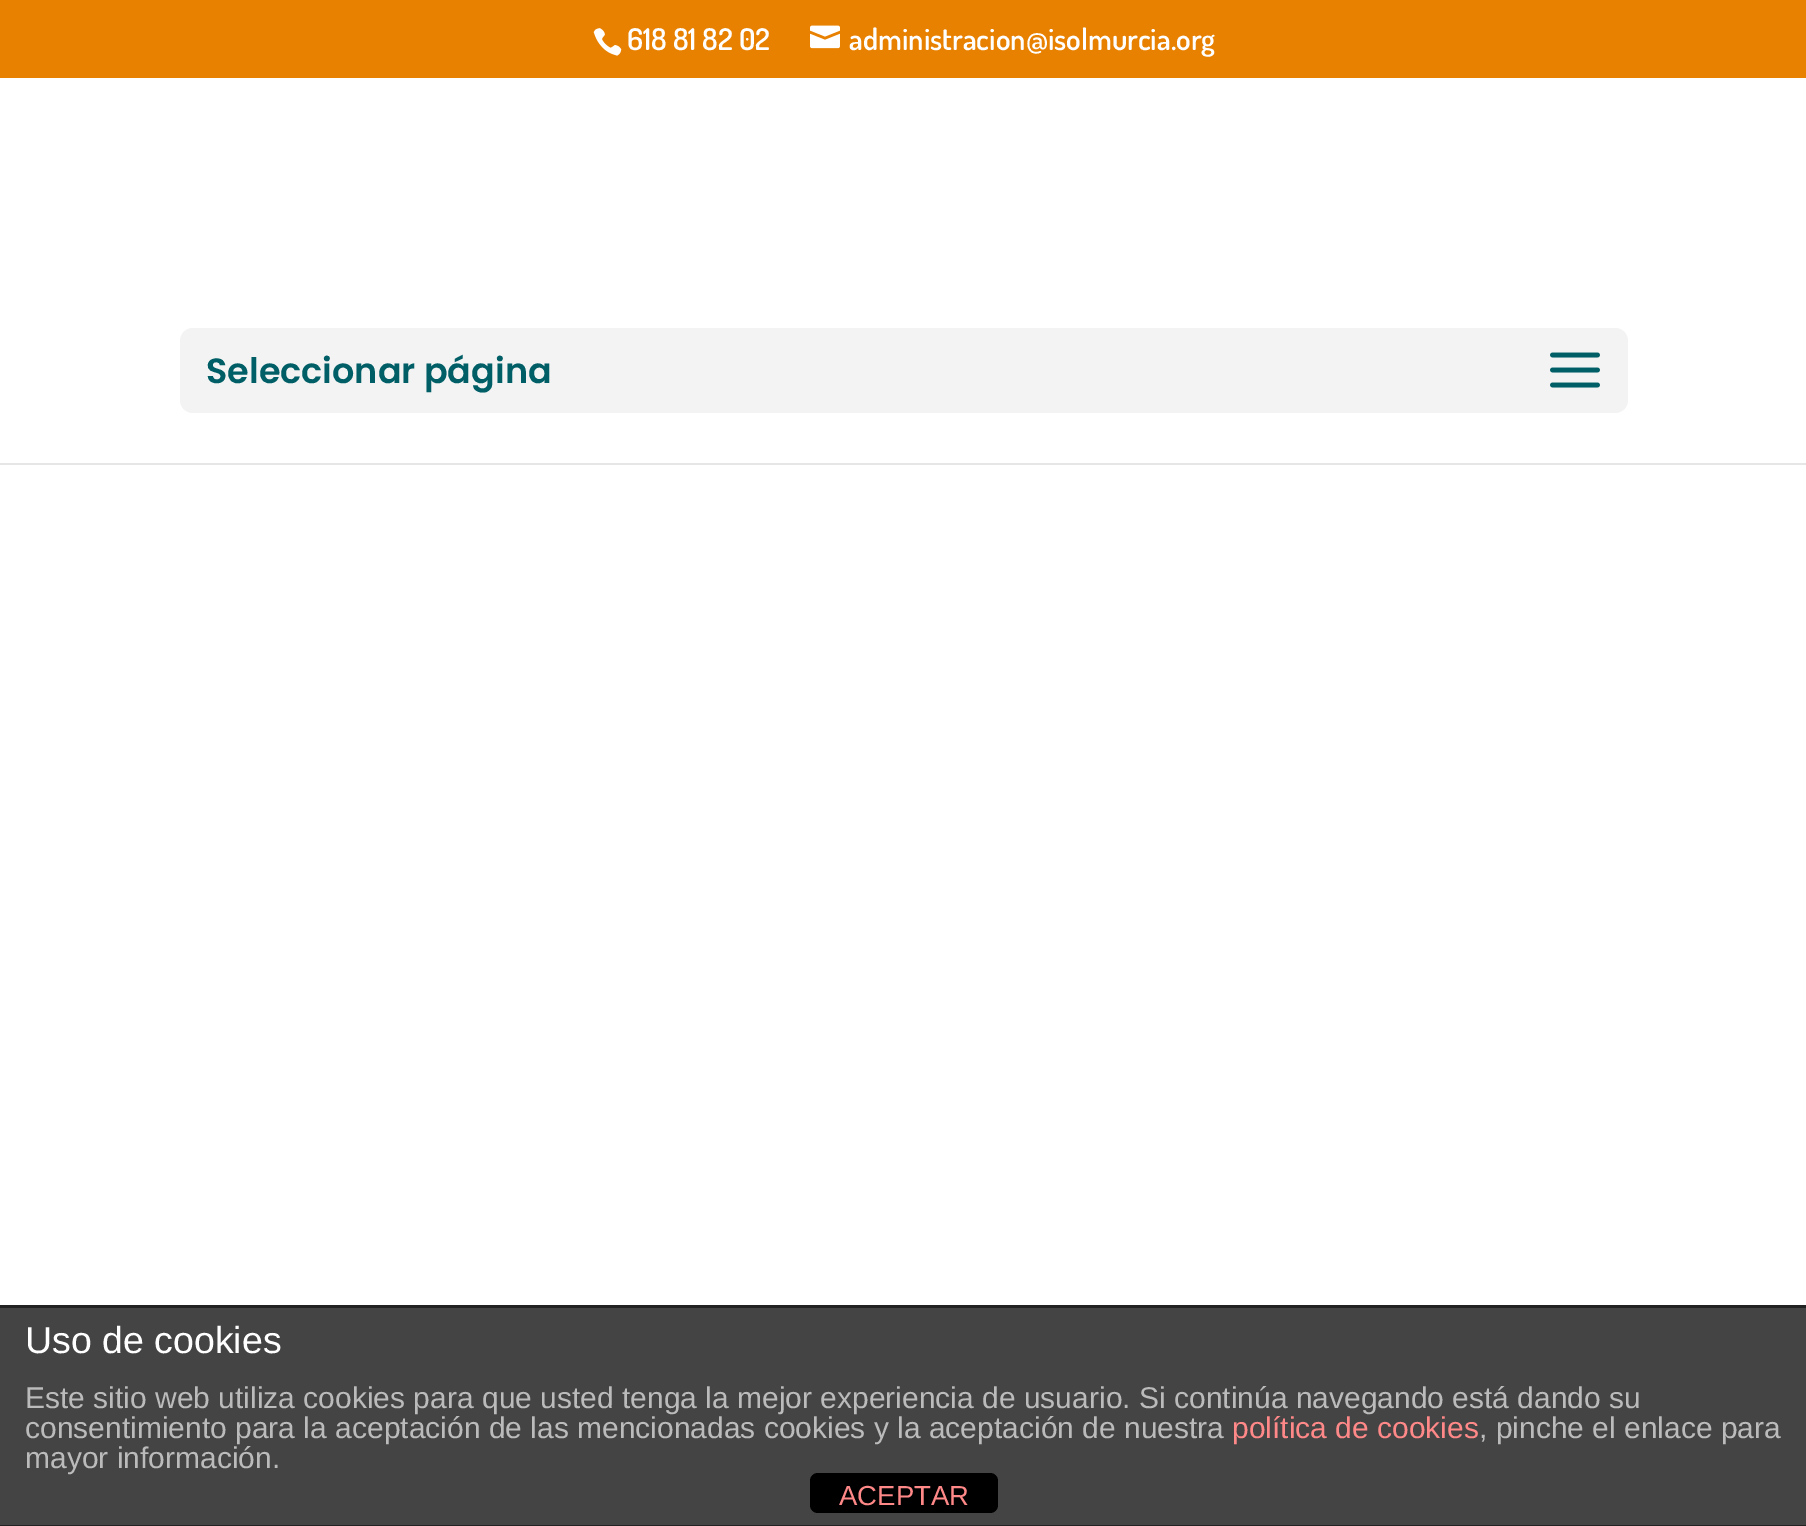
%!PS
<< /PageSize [1806 1526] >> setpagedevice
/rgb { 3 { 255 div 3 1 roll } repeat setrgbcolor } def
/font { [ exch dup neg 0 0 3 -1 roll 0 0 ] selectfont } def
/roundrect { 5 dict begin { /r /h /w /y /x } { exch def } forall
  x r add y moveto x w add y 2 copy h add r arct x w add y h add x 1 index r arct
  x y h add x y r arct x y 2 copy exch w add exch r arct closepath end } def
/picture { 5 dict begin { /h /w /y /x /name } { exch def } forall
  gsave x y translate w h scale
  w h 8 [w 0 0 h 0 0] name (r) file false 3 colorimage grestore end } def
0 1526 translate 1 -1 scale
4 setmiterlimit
255 255 255 rgb
0 0 1806 1526 rectfill
232 128 0 rgb
0 0 1806 78 rectfill
(img/1.rgb) 593 28 29 28 picture
(img/2.rgb) 810 25 30 24 picture
230 230 230 rgb
0 462 moveto 0 465 lineto 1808 465 lineto 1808 80 lineto 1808 462 lineto closepath fill
255 255 255 rgb
0 462 1806 1 rectfill
243 243 243 rgb
180 328 1448 85 13 roundrect fill
(img/3.rgb) 1550 352 50 36 picture
[
  [0 1308 1806 217 68 68 68]
  [0 1305 1806 3 34 34 34]
  [0 1525 1806 1 34 34 34]
] { aload pop rgb rectfill } forall
0 0 0 rgb
810 1473 188 40 8 roundrect fill
/Dosis-SemiBold 30 font
255 255 255 rgb
627 50 moveto (618 81 82 02) show
849 50 moveto (administracion@isolmurcia.org) show
/Poppins-SemiBold 35 font
0 95 102 rgb
206 383 moveto (Seleccionar página) show
/LiberationSans-Regular 37.5 font
255 255 255 rgb
25 1353 moveto (Uso de cookies) show
/LiberationSans-Regular 30 font
187 187 187 rgb
25 1408 moveto (Este sitio web utiliza cookies para que usted tenga la mejor experiencia de usuario. Si continúa navegando está dando su) show
25 1438 moveto (consentimiento para la aceptación de las mencionadas cookies y la aceptación de nuestra) show
255 136 136 rgb
1232 1438 moveto (política de cookies) show
187 187 187 rgb
1479 1438 moveto (, pinche el enlace para) show
25 1468 moveto (mayor información.) show
/LiberationSans-Regular 27.5 font
255 136 136 rgb
839 1505 moveto (ACEPTAR) show
showpage
